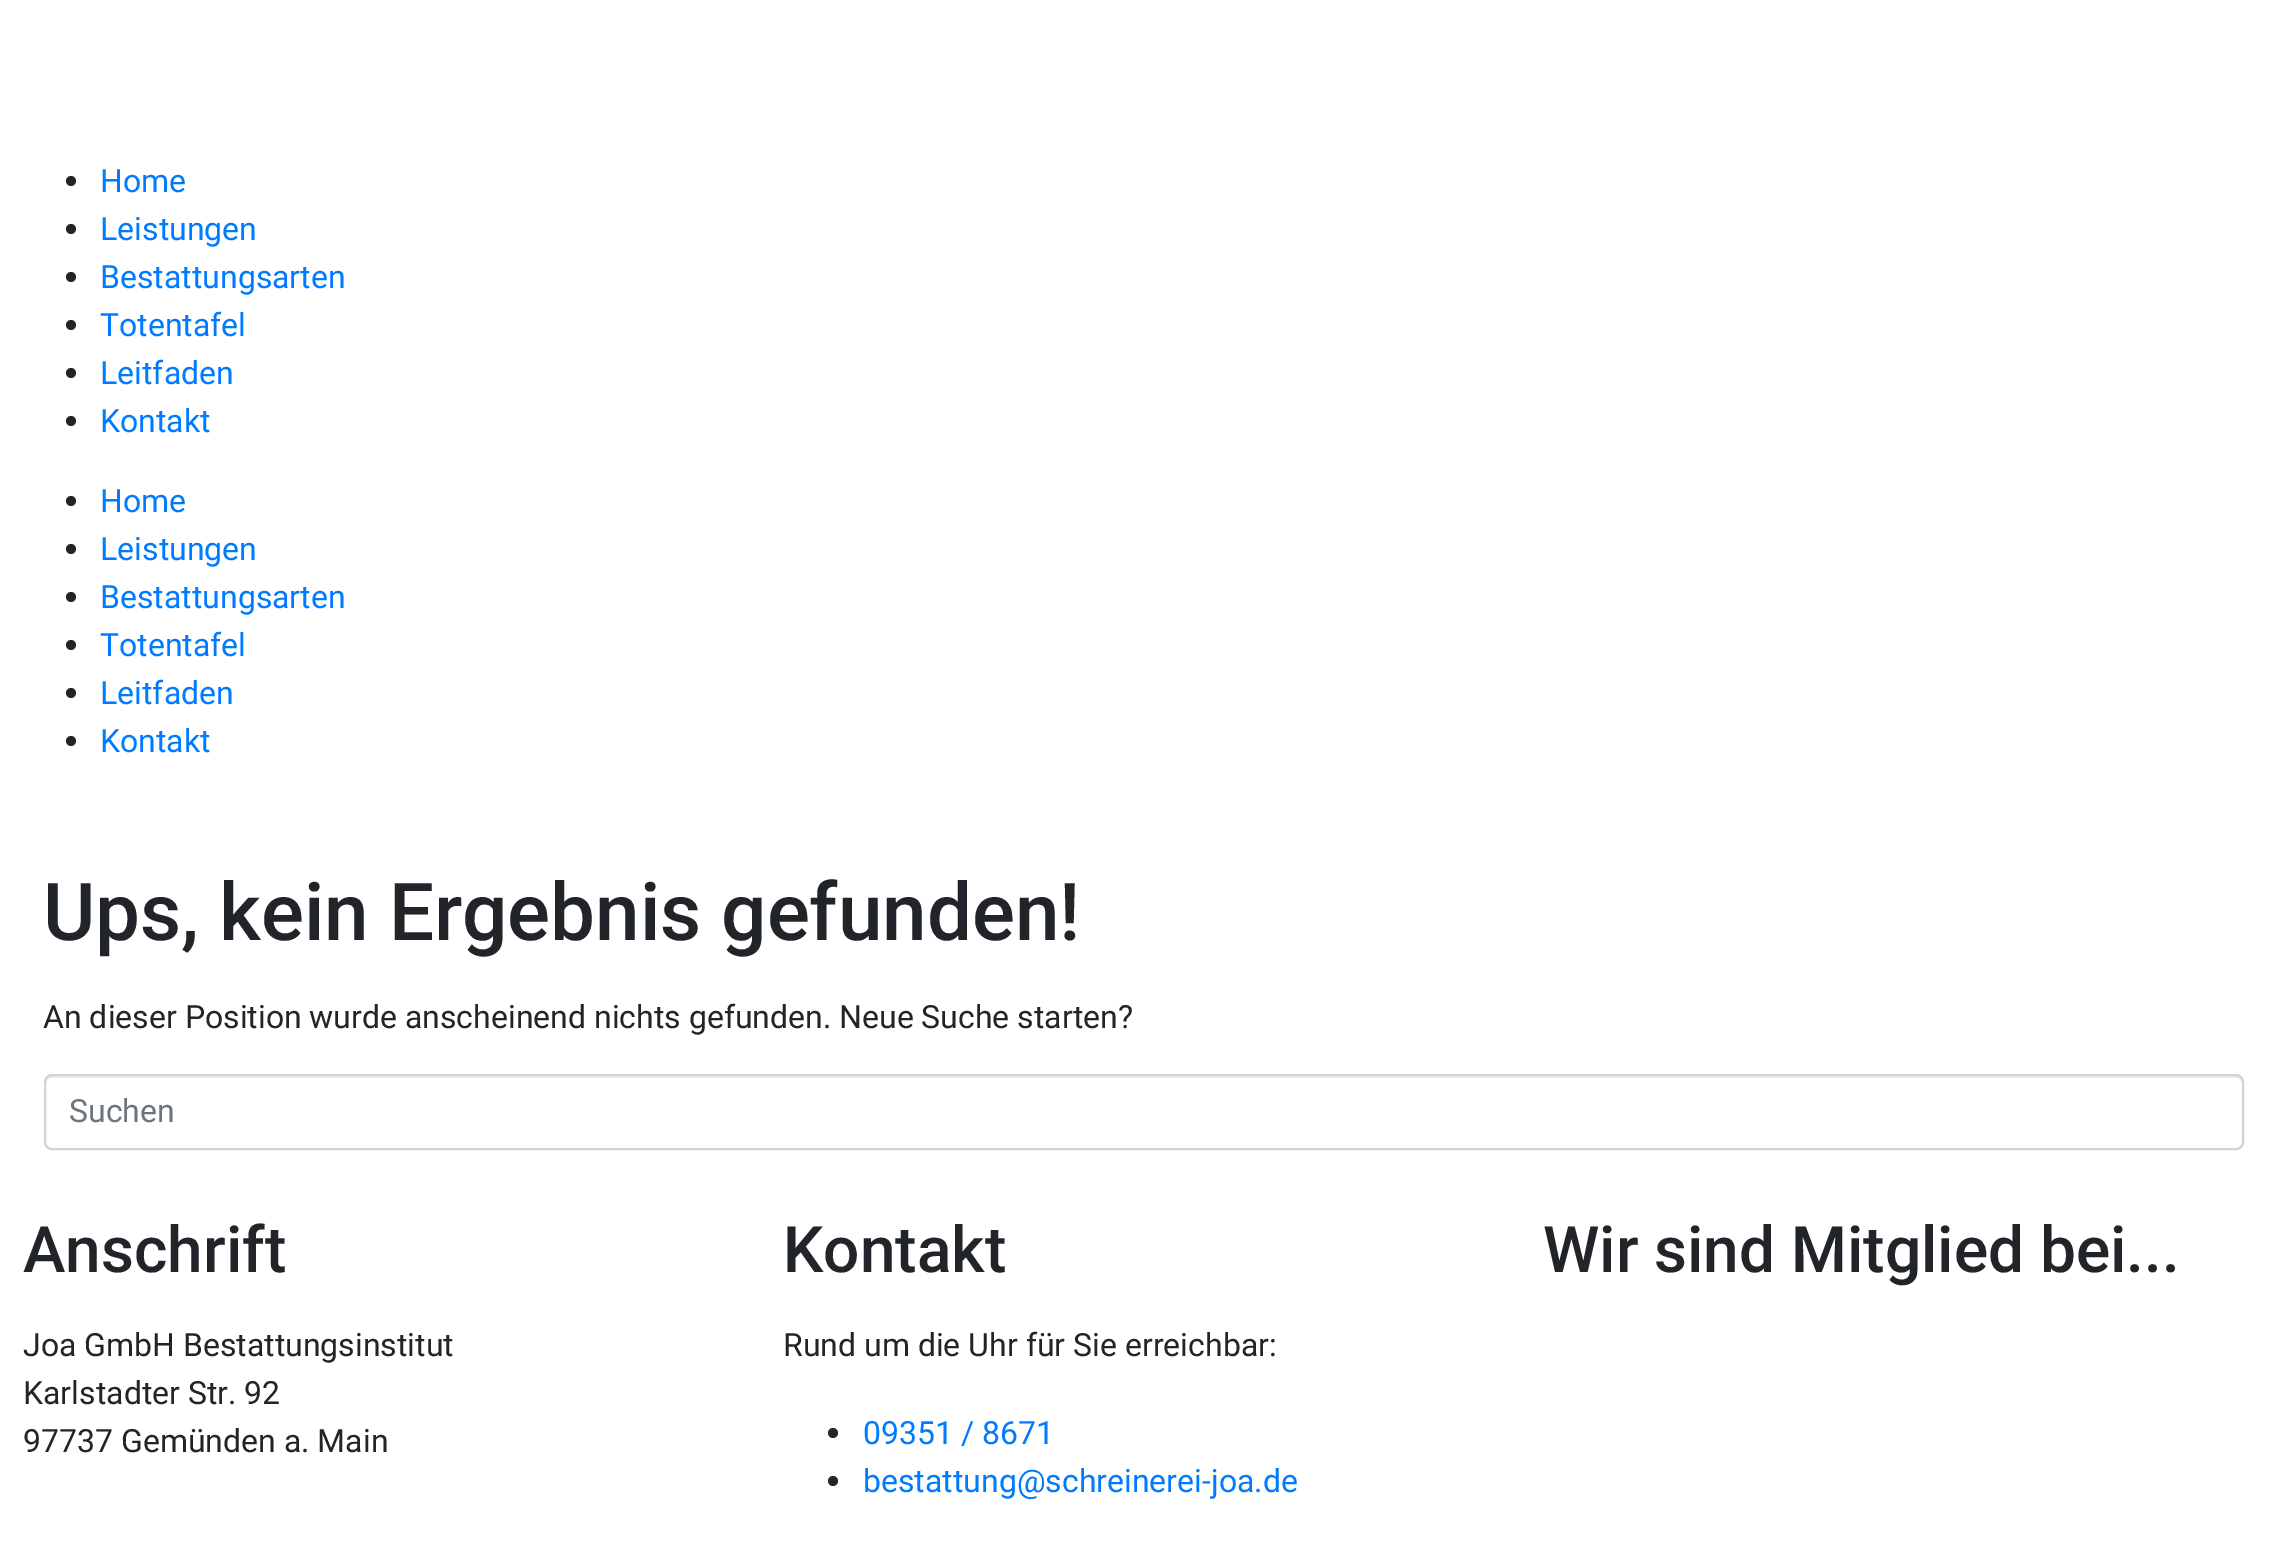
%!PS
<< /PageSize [2285 1556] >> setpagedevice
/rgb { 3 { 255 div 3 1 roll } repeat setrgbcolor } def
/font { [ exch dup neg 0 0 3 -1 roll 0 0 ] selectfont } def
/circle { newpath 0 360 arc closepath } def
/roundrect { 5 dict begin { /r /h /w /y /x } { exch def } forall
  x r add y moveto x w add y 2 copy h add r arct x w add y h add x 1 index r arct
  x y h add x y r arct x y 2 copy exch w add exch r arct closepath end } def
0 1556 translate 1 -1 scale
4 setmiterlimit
255 255 255 rgb
0 0 2285 1556 rectfill
33 37 41 rgb
71 181 5 circle fill
71 229 5 circle fill
71 277 5 circle fill
71 325 5 circle fill
71 373 5 circle fill
71 421 5 circle fill
71 501 5 circle fill
71 549 5 circle fill
71 597 5 circle fill
71 645 5 circle fill
71 693 5 circle fill
71 741 5 circle fill
236 236 236 rgb
52 1078 moveto 2236 1078 lineto 2239 1078 2242 1081 2242 1084 curveto 2242 1082 lineto 2242 1079 2239 1076 2236 1076 curveto 52 1076 lineto 49 1076 46 1079 46 1082 curveto 46 1084 lineto 46 1081 49 1078 52 1078 curveto closepath fill
206 212 218 rgb
2 setlinewidth
45 1075 2198 74 7 roundrect stroke
33 37 41 rgb
833 1433 5 circle fill
833 1481 5 circle fill
/Roboto-Regular 32 font
0 123 255 rgb
[
  [(Home) 100 192]
  [(Leistungen) 100 240]
  [(Bestattungsarten) 100 288]
  [(Totentafel) 100 336]
  [(Leitfaden) 100 384]
  [(Kontakt) 100 432]
  [(Home) 100 512]
  [(Leistungen) 100 560]
  [(Bestattungsarten) 100 608]
  [(Totentafel) 100 656]
  [(Leitfaden) 100 704]
  [(Kontakt) 100 752]
] { aload pop moveto show } forall
/Roboto-Medium 80 font
33 37 41 rgb
43 940 moveto (Ups, kein Ergebnis gefunden!) show
/Roboto-Regular 32 font
43 1028 moveto (An dieser Position wurde anscheinend nichts gefunden. Neue Suche starten?) show
108 117 125 rgb
69 1122 moveto (Suchen) show
/Roboto-Medium 64 font
33 37 41 rgb
23 1272 moveto (Anschrift) show
/Roboto-Regular 32 font
[
  [(Joa GmbH Bestattungsinstitut) 23 1356]
  [(Karlstadter Str. 92) 23 1404]
  [(97737 Gemünden a. Main) 23 1452]
] { aload pop moveto show } forall
/Roboto-Medium 64 font
783 1272 moveto (Kontakt) show
/Roboto-Regular 32 font
783 1356 moveto (Rund um die Uhr für Sie erreichbar:) show
0 123 255 rgb
863 1444 moveto (09351 / 8671) show
863 1492 moveto (bestattung@schreinerei-joa.de) show
/Roboto-Medium 64 font
33 37 41 rgb
1543 1272 moveto (Wir sind Mitglied bei...) show
showpage
